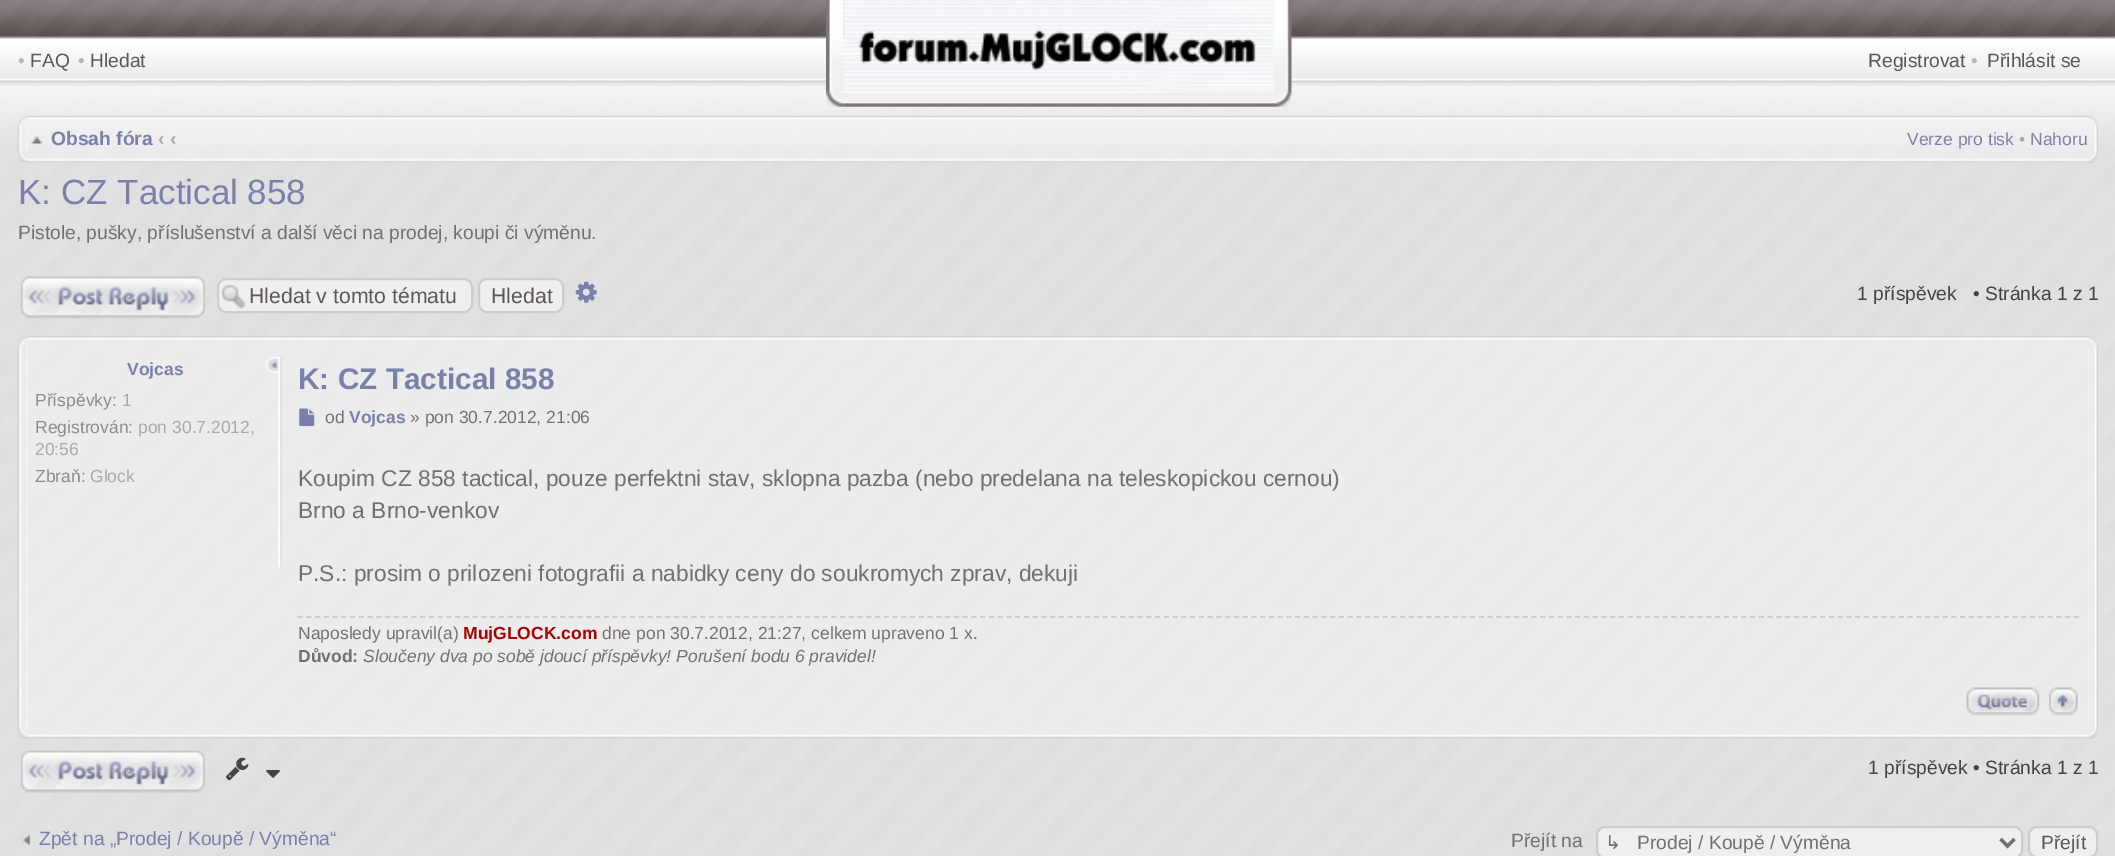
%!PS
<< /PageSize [2115 856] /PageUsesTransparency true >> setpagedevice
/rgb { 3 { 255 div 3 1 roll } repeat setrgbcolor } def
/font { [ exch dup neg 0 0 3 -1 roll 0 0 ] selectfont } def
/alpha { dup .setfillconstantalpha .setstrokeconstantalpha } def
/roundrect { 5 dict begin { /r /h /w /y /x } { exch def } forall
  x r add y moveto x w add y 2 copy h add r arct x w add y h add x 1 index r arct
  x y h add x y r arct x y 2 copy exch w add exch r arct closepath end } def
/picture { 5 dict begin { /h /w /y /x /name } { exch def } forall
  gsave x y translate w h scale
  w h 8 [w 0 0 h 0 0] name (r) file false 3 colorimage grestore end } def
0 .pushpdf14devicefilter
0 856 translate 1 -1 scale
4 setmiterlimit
255 255 255 rgb
0 0 2115 856 rectfill
(img/1.rgb) 0 147 2115 709 picture
(img/2.rgb) 0 0 2115 147 picture
(img/3.rgb) 843 0 431 107 picture
(img/5.rgb) 843 0 431 93 picture
(img/4.rgb) 826 0 18 107 picture
(img/6.rgb) 1274 0 18 107 picture
(img/7.rgb) 28 115 2060 11 picture
(img/8.rgb) 17 115 11 11 picture
(img/9.rgb) 2088 115 10 11 picture
(img/10.rgb) 17 126 11 27 picture
(img/11.rgb) 2088 126 10 27 picture
0.5 alpha
247 247 247 rgb
26 126 2062 26 rectfill
1 alpha
(img/12.rgb) 31 136 12 8 picture
(img/13.rgb) 28 152 2060 11 picture
(img/14.rgb) 18 152 10 11 picture
(img/15.rgb) 2088 152 10 11 picture
(img/16.rgb) 20 276 185 43 picture
239 239 239 rgb
217 278 256 35 9 roundrect fill
(img/17.rgb) 222 285 24 23 picture
204 204 204 rgb
2 setlinewidth
218 279 254 33 8 roundrect stroke
239 239 239 rgb
479 279 84 33 8 roundrect gsave fill grestore
204 204 204 rgb
stroke
(img/18.rgb) 575 281 22 22 picture
(img/19.rgb) 28 336 2060 11 picture
(img/20.rgb) 17 336 11 11 picture
(img/21.rgb) 2088 336 10 11 picture
(img/22.rgb) 17 346 11 382 picture
(img/23.rgb) 2088 346 10 382 picture
0.5 alpha
[
  [26 346 2063 382 247 247 247]
] { aload pop rgb rectfill } forall
1 alpha
[
  [280 357 2 210 227 227 227]
  [278 357 2 210 252 252 252]
] { aload pop rgb rectfill } forall
(img/24.rgb) 266 357 13 16 picture
(img/25.rgb) 299 408 16 18 picture
204 204 204 rgb
1.8 setlinewidth
[5.25 3.5] 0 setdash
297.5 617 moveto 2081 617 lineto stroke
(img/26.rgb) 1966 687 74 29 picture
(img/27.rgb) 1966 687 73 28 picture
(img/28.rgb) 2049 687 29 29 picture
(img/29.rgb) 2050 687 28 28 picture
(img/30.rgb) 28 728 2060 11 picture
(img/31.rgb) 17 728 11 11 picture
(img/32.rgb) 2088 728 10 11 picture
(img/33.rgb) 20 750 185 43 picture
(img/34.rgb) 226 757 23 24 picture
(img/35.rgb) 266 770 14 8 picture
(img/36.rgb) 22 834 8 12 picture
239 239 239 rgb
1597 827 425 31 8 roundrect gsave fill grestore
204 204 204 rgb
2 setlinewidth
[] 0 setdash
stroke
119 111 111 rgb
3.5 setlinewidth
2000.5 839 moveto 2007.5 846 lineto 2014.5 839 lineto stroke
239 239 239 rgb
2029 827 68 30 8 roundrect gsave fill grestore
204 204 204 rgb
2 setlinewidth
stroke
/LiberationSans-Regular 19.25 font
186 180 180 rgb
18 67 moveto (•) show
95 87 86 rgb
30 67 moveto (FAQ) show
186 180 180 rgb
78 67 moveto (•) show
95 87 86 rgb
90 67 moveto (Hledat) show
1868 67 moveto (Registrovat) show
186 180 180 rgb
1971 67 moveto (•) show
95 87 86 rgb
1987 67 moveto (Přihlásit se) show
/LiberationSans-Bold 19.25 font
121 129 171 rgb
51 145 moveto (Obsah fóra) show
175 165 165 rgb
158 145 moveto (‹ ‹) show
/LiberationSans-Regular 17.5 font
121 129 171 rgb
1907 145 moveto (Verze pro tisk) show
175 165 165 rgb
2019 145 moveto (•) show
121 129 171 rgb
2030 145 moveto (Nahoru) show
/LiberationSans-Regular 35 font
18 204 moveto (K: CZ Tactical 858) show
/LiberationSans-Regular 19.25 font
119 111 111 rgb
18 239 moveto (Pistole, pušky, příslušenství a další věci na prodej, koupi či výměnu.) show
/LiberationSans-Regular 21.25 font
95 87 86 rgb
249 303 moveto (Hledat v tomto tématu) show
491 303 moveto (Hledat) show
/LiberationSans-Regular 19.25 font
68 68 68 rgb
1857 300 moveto (1 příspěvek) show
1973 300 moveto (• Stránka 1 z 1) show
/LiberationSans-Bold 17.5 font
121 129 171 rgb
127 375 moveto (Vojcas) show
/LiberationSans-Regular 17.5 font
147 135 135 rgb
35 406 moveto (Příspěvky:) show
175 165 165 rgb
122 406 moveto (1) show
147 135 135 rgb
35 433 moveto (Registrován:) show
175 165 165 rgb
138 433 moveto (pon 30.7.2012,) show
35 455 moveto (20:56) show
147 135 135 rgb
35 482 moveto (Zbraň:) show
175 165 165 rgb
90 482 moveto (Glock) show
/LiberationSans-Bold 29.75 font
121 129 171 rgb
298 389 moveto (K: CZ Tactical 858) show
/LiberationSans-Regular 17.5 font
119 111 111 rgb
325 423 moveto (od) show
/LiberationSans-Bold 17.5 font
121 129 171 rgb
349 423 moveto (Vojcas) show
/LiberationSans-Regular 17.5 font
119 111 111 rgb
410 423 moveto (» pon 30.7.2012, 21:06) show
/LiberationSans-Regular 22.75 font
[
  [(Koupim CZ 858 tactical, pouze perfektni stav, sklopna pazba \(nebo predelana na teleskopickou cernou\)) 298 486]
  [(Brno a Brno-venkov) 298 518]
  [(P.S.: prosim o prilozeni fotografii a nabidky ceny do soukromych zprav, dekuji) 298 581]
] { aload pop moveto show } forall
/LiberationSans-Regular 17.5 font
298 639 moveto (Naposledy upravil\(a\)) show
/LiberationSans-Bold 17.5 font
170 0 0 rgb
463 639 moveto (MujGLOCK.com) show
/LiberationSans-Regular 17.5 font
119 111 111 rgb
602 639 moveto (dne pon 30.7.2012, 21:27, celkem upraveno 1 x.) show
/LiberationSans-Bold 17.5 font
298 662 moveto (Důvod:) show
/LiberationSans-Italic 17.5 font
363 662 moveto (Sloučeny dva po sobě jdoucí příspěvky! Porušení bodu 6 pravidel!) show
/LiberationSans-Regular 19.25 font
68 68 68 rgb
1868 774 moveto (1 příspěvek • Stránka 1 z 1) show
121 129 171 rgb
39 845 moveto (Zpět na „Prodej / Koupě / Výměna“) show
119 111 111 rgb
1511 847 moveto (Přejít na) show
/DejaVuSans-Regular 19.25 font
1605 849 moveto (↳) show
/LiberationSans-Regular 19.25 font
1637 849 moveto (Prodej / Koupě / Výměna) show
95 87 86 rgb
2041 849 moveto (Přejít) show
.poppdf14devicefilter showpage
